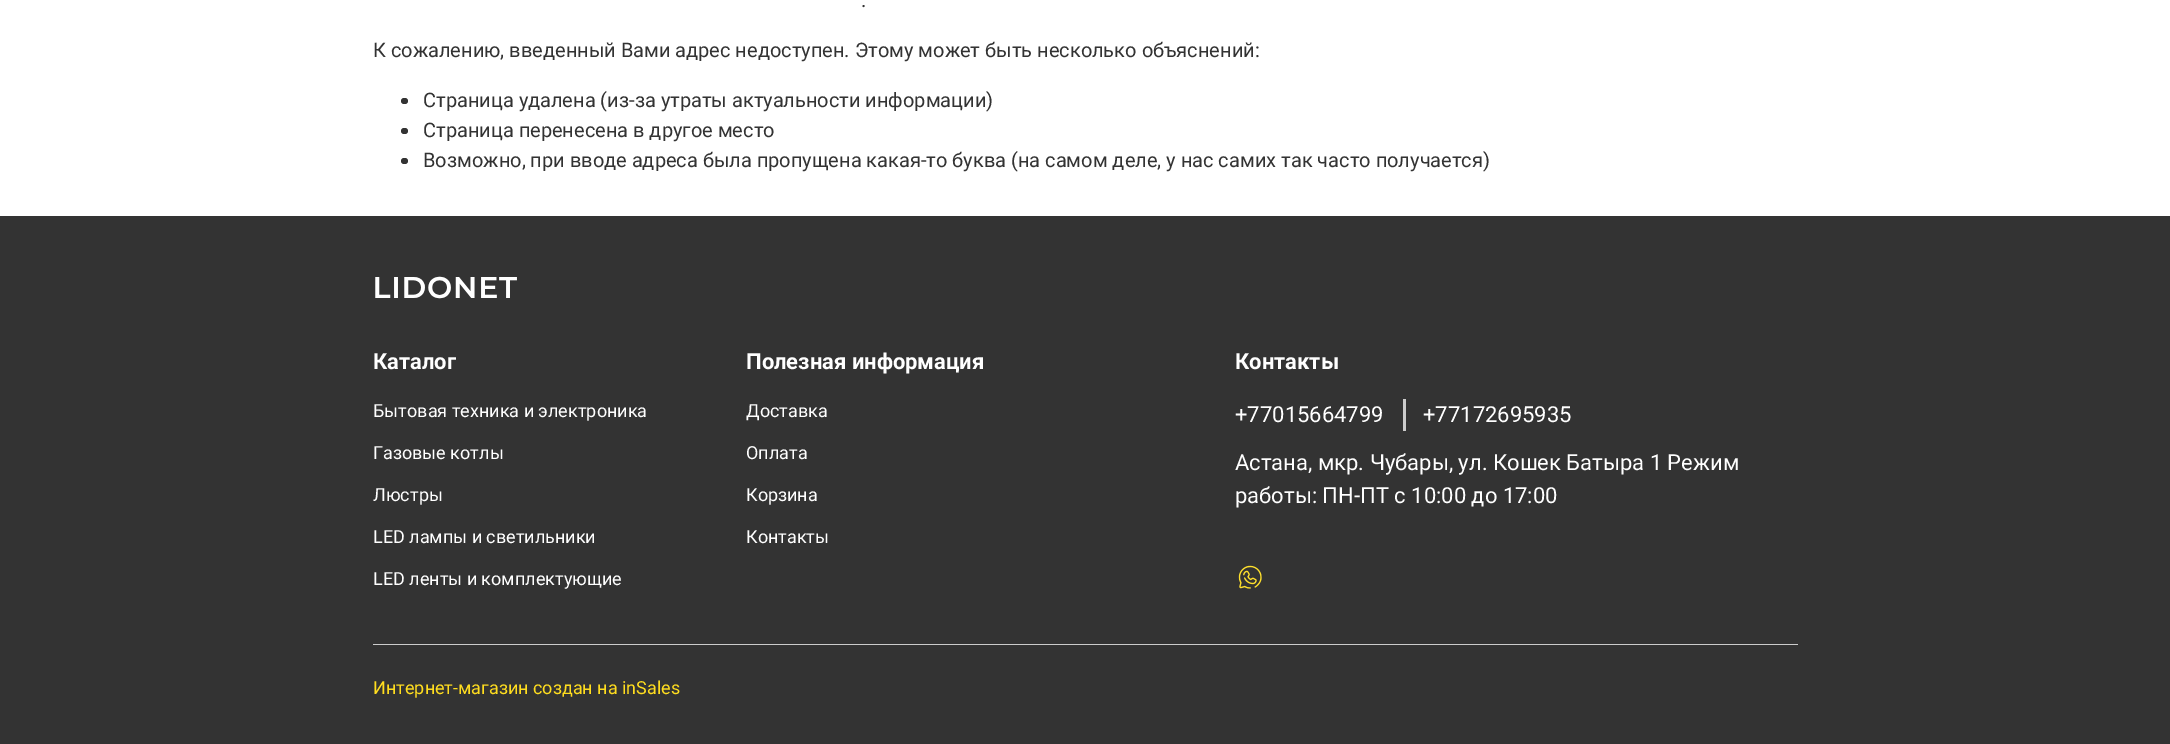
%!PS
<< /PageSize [2170 744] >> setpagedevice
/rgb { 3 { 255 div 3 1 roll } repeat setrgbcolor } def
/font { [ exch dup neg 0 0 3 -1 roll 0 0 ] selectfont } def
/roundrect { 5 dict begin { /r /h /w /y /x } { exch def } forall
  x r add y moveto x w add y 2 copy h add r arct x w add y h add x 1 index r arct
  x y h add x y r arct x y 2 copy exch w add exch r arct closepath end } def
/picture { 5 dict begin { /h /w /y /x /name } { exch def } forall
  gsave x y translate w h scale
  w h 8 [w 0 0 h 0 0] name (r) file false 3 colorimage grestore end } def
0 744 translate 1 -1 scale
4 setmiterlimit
255 255 255 rgb
0 0 2170 744 rectfill
51 51 51 rgb
401 98 7 6 3 roundrect fill
401 128 7 6 3 roundrect fill
401 158 7 6 3 roundrect fill
0 216 2170 528 rectfill
(img/1.rgb) 375 276 142 23 picture
204 204 204 rgb
1403 399 3 32 rectfill
(img/2.rgb) 1238 565 24 24 picture
373 644 1425 1 rectfill
/Roboto-Regular 20 font
51 51 51 rgb
[
  [(.) 861 7]
  [(К сожалению, введенный Вами адрес недоступен. Этому может быть несколько объяснений:) 373 57]
  [(Страница удалена \(из-за утраты актуальности информации\)) 423 107]
  [(Страница перенесена в другое место) 423 137]
  [(Возможно, при вводе адреса была пропущена какая-то буква \(на самом деле, у нас самих так часто получается\)) 423 167]
] { aload pop moveto show } forall
/Roboto-Bold 22 font
255 255 255 rgb
373 369 moveto (Каталог) show
/Roboto-Regular 18 font
[
  [(Бытовая техника и электроника) 373 417]
  [(Газовые котлы) 373 459]
  [(Люстры) 373 501]
  [(LED лампы и светильники) 373 543]
  [(LED ленты и комплектующие) 373 585]
] { aload pop moveto show } forall
/Roboto-Bold 22 font
746 369 moveto (Полезная информация) show
/Roboto-Regular 18 font
[
  [(Доставка) 746 417]
  [(Оплата) 746 459]
  [(Корзина) 746 501]
  [(Контакты) 746 543]
] { aload pop moveto show } forall
/Roboto-Bold 22 font
1235 369 moveto (Контакты) show
/Roboto-Regular 22 font
[
  [(+77015664799) 1235 422]
  [(+77172695935) 1423 422]
  [(Астана, мкр. Чубары, ул. Кошек Батыра 1 Режим) 1235 470]
  [(работы: ПН-ПТ с 10:00 до 17:00) 1235 503]
] { aload pop moveto show } forall
/Roboto-Regular 18 font
255 221 31 rgb
373 694 moveto (Интернет-магазин создан на inSales) show
showpage
